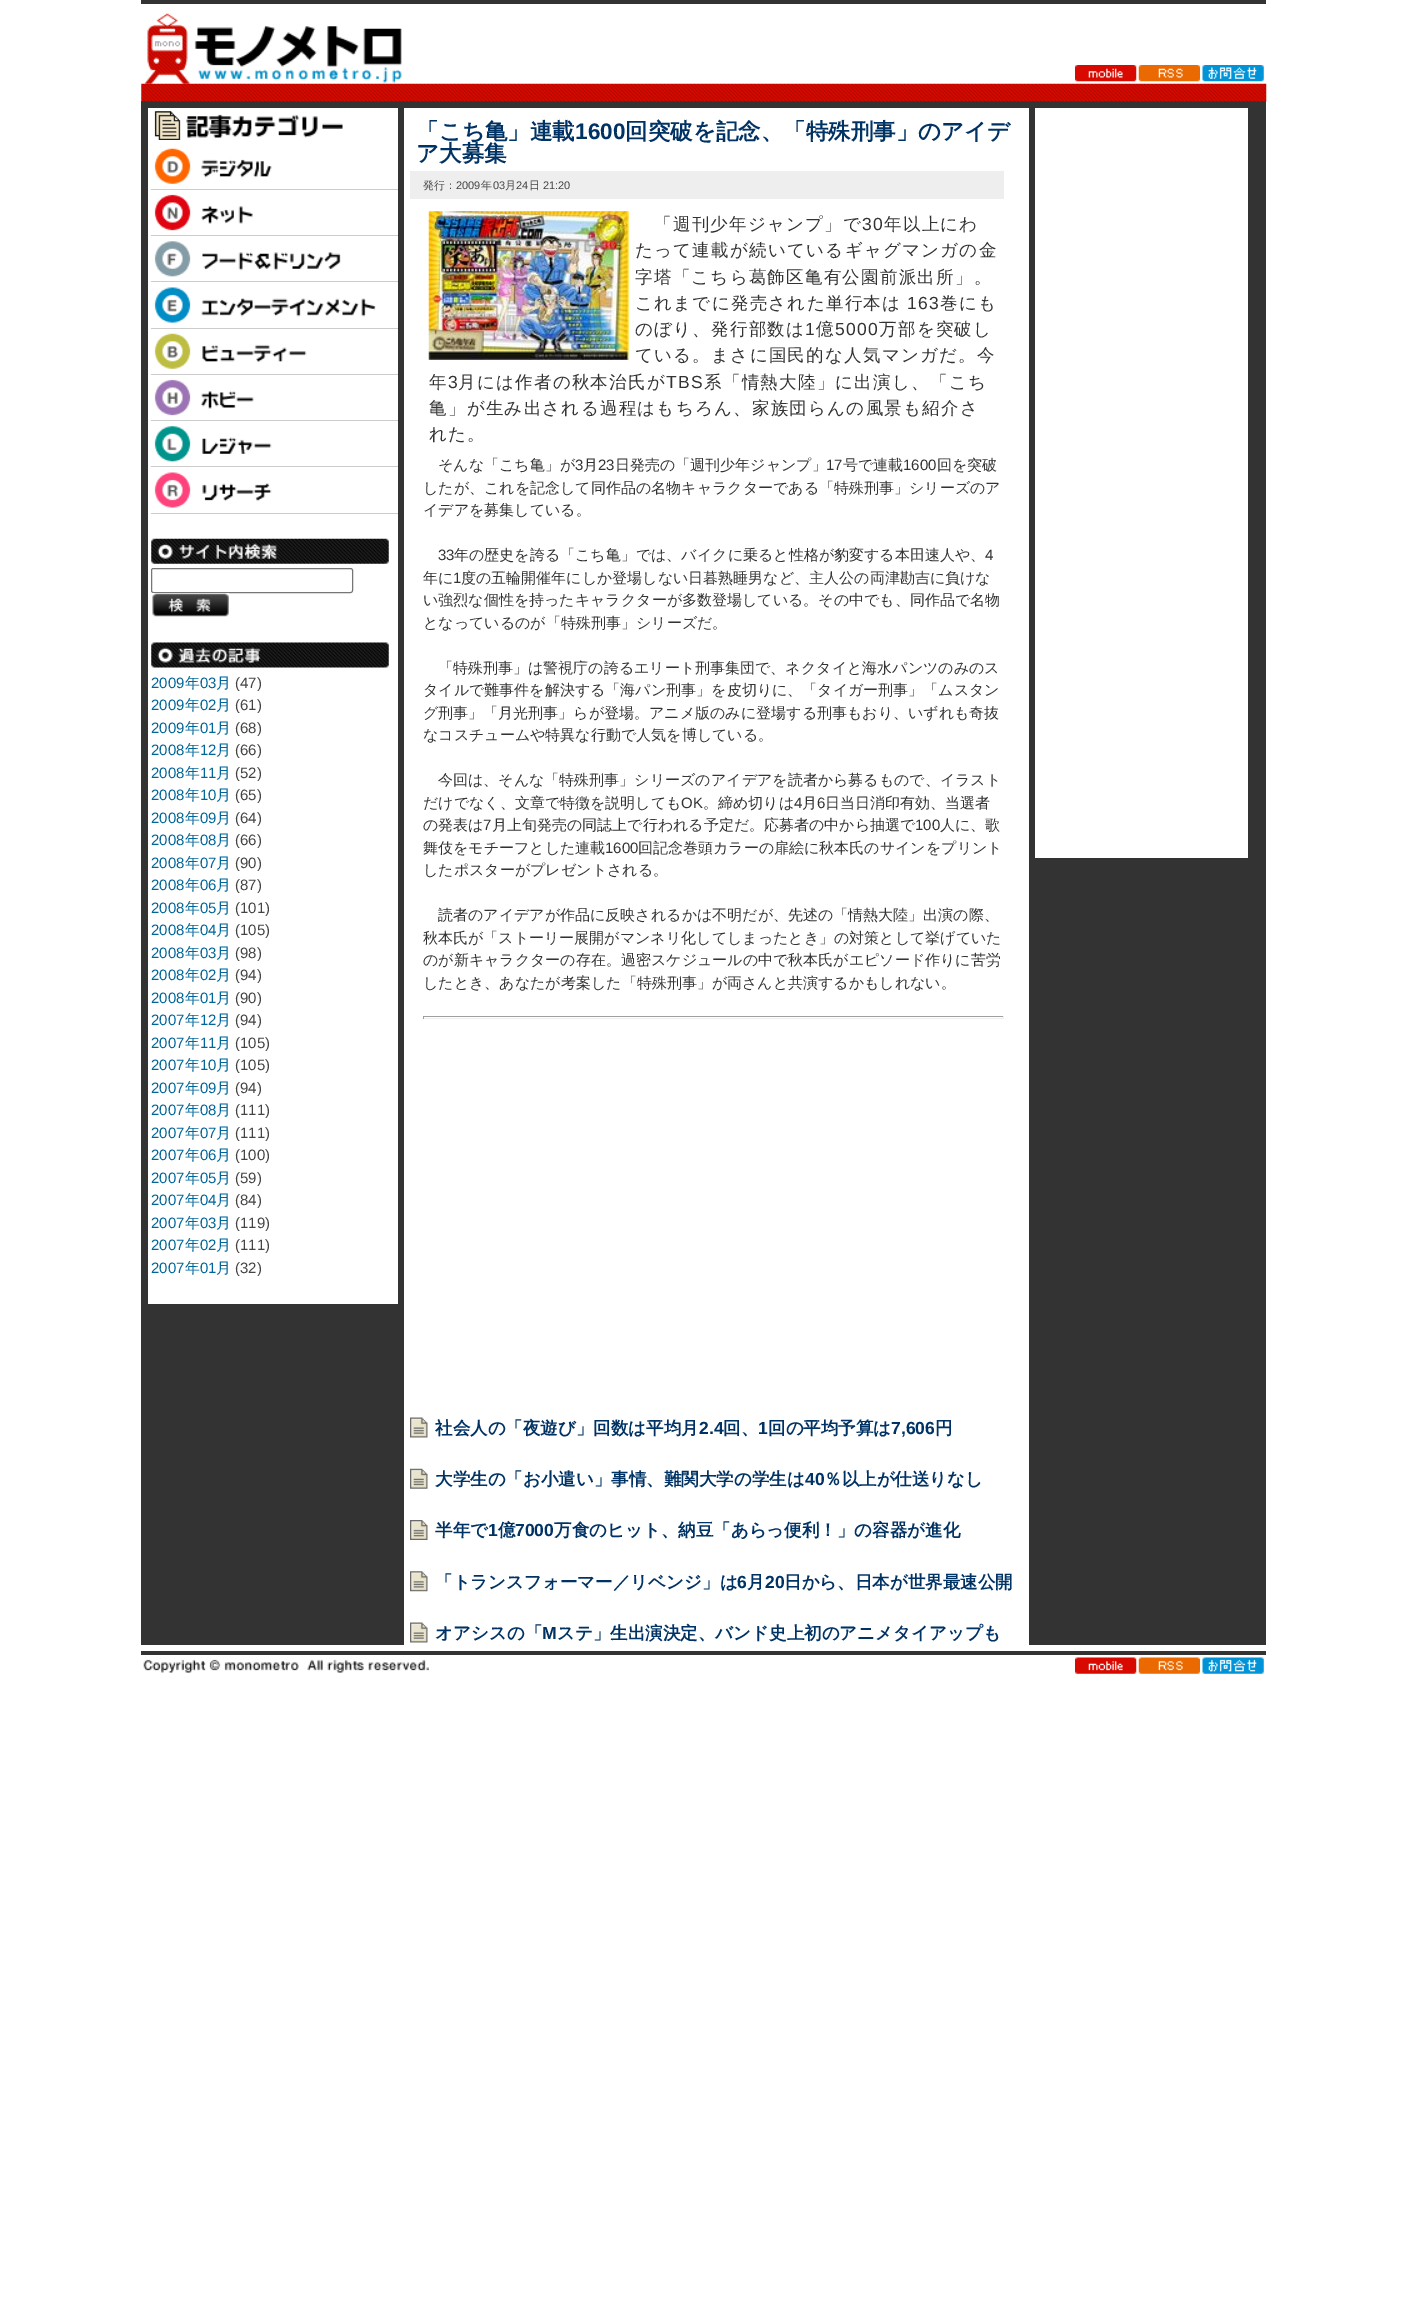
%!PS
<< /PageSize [1407 2318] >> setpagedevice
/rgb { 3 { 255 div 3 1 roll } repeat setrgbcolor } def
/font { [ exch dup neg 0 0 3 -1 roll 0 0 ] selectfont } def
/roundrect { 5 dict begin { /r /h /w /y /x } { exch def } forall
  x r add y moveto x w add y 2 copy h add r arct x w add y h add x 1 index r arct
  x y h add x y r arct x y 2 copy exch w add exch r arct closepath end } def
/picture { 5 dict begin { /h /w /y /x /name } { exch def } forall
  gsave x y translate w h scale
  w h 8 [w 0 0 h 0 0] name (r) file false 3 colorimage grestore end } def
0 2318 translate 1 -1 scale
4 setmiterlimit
255 255 255 rgb
0 0 1407 2318 rectfill
51 51 51 rgb
141 101 1125 1544 rectfill
141 0 1125 4 rectfill
(img/1.rgb) 144 13 258 71 picture
(img/2.rgb) 1075 65 62 17 picture
(img/3.rgb) 1138 65 62 17 picture
(img/4.rgb) 1202 65 62 17 picture
(img/5.rgb) 141 83 1126 19 picture
255 255 255 rgb
148 108 250 1196 rectfill
(img/6.rgb) 154 111 189 29 picture
204 204 204 rgb
151 189 247 1 rectfill
(img/7.rgb) 154 148 118 36 picture
151 235 247 1 rectfill
(img/8.rgb) 154 194 99 37 picture
151 281 247 1 rectfill
(img/9.rgb) 154 241 187 36 picture
151 328 247 1 rectfill
(img/10.rgb) 154 287 222 36 picture
151 374 247 1 rectfill
(img/11.rgb) 154 333 153 36 picture
151 420 247 1 rectfill
(img/12.rgb) 154 379 100 37 picture
151 466 247 1 rectfill
(img/13.rgb) 154 426 118 36 picture
151 513 247 1 rectfill
(img/14.rgb) 154 472 118 36 picture
(img/15.rgb) 151 538 238 26 picture
118 118 118 rgb
151.5 568.5 201 24 2 roundrect stroke
(img/16.rgb) 152 593 77 24 picture
(img/17.rgb) 151 642 238 26 picture
255 255 255 rgb
404 108 625 1537 rectfill
238 238 238 rgb
410 171 594 28 rectfill
(img/18.rgb) 428 211 201 149 picture
[
  [423 1016 581 1 159 159 159]
  [1003 1016 1 3 238 238 238]
  [423 1018 581 1 238 238 238]
  [423 1016 1 3 159 159 159]
] { aload pop rgb rectfill } forall
(img/19.rgb) 410 1417 18 21 picture
(img/20.rgb) 410 1468 18 21 picture
(img/21.rgb) 410 1520 18 20 picture
(img/22.rgb) 410 1571 18 21 picture
(img/19.rgb) 410 1622 18 21 picture
255 255 255 rgb
1035 108 213 750 rectfill
51 51 51 rgb
141 1651 1125 4 rectfill
(img/23.rgb) 143 1659 286 14 picture
(img/24.rgb) 1075 1657 62 17 picture
(img/25.rgb) 1138 1657 62 17 picture
(img/26.rgb) 1202 1657 62 17 picture
/LiberationSans-Regular 15 font
0 102 153 rgb
151 688 moveto (2009) show
/WenQuanYiZenHei-Medium 15 font
185 688 moveto (年) show
/LiberationSans-Regular 15 font
200 688 moveto (03) show
/WenQuanYiZenHei-Medium 15 font
216 688 moveto (月) show
/LiberationSans-Regular 15 font
68 68 68 rgb
235 688 moveto (\(47\)) show
0 102 153 rgb
151 710 moveto (2009) show
/WenQuanYiZenHei-Medium 15 font
185 710 moveto (年) show
/LiberationSans-Regular 15 font
200 710 moveto (02) show
/WenQuanYiZenHei-Medium 15 font
216 710 moveto (月) show
/LiberationSans-Regular 15 font
68 68 68 rgb
235 710 moveto (\(61\)) show
0 102 153 rgb
151 733 moveto (2009) show
/WenQuanYiZenHei-Medium 15 font
185 733 moveto (年) show
/LiberationSans-Regular 15 font
200 733 moveto (01) show
/WenQuanYiZenHei-Medium 15 font
216 733 moveto (月) show
/LiberationSans-Regular 15 font
68 68 68 rgb
235 733 moveto (\(68\)) show
0 102 153 rgb
151 755 moveto (2008) show
/WenQuanYiZenHei-Medium 15 font
185 755 moveto (年) show
/LiberationSans-Regular 15 font
200 755 moveto (12) show
/WenQuanYiZenHei-Medium 15 font
216 755 moveto (月) show
/LiberationSans-Regular 15 font
68 68 68 rgb
235 755 moveto (\(66\)) show
0 102 153 rgb
151 778 moveto (2008) show
/WenQuanYiZenHei-Medium 15 font
185 778 moveto (年) show
/LiberationSans-Regular 15 font
200 778 moveto (11) show
/WenQuanYiZenHei-Medium 15 font
216 778 moveto (月) show
/LiberationSans-Regular 15 font
68 68 68 rgb
235 778 moveto (\(52\)) show
0 102 153 rgb
151 800 moveto (2008) show
/WenQuanYiZenHei-Medium 15 font
185 800 moveto (年) show
/LiberationSans-Regular 15 font
200 800 moveto (10) show
/WenQuanYiZenHei-Medium 15 font
216 800 moveto (月) show
/LiberationSans-Regular 15 font
68 68 68 rgb
235 800 moveto (\(65\)) show
0 102 153 rgb
151 823 moveto (2008) show
/WenQuanYiZenHei-Medium 15 font
185 823 moveto (年) show
/LiberationSans-Regular 15 font
200 823 moveto (09) show
/WenQuanYiZenHei-Medium 15 font
216 823 moveto (月) show
/LiberationSans-Regular 15 font
68 68 68 rgb
235 823 moveto (\(64\)) show
0 102 153 rgb
151 845 moveto (2008) show
/WenQuanYiZenHei-Medium 15 font
185 845 moveto (年) show
/LiberationSans-Regular 15 font
200 845 moveto (08) show
/WenQuanYiZenHei-Medium 15 font
216 845 moveto (月) show
/LiberationSans-Regular 15 font
68 68 68 rgb
235 845 moveto (\(66\)) show
0 102 153 rgb
151 868 moveto (2008) show
/WenQuanYiZenHei-Medium 15 font
185 868 moveto (年) show
/LiberationSans-Regular 15 font
200 868 moveto (07) show
/WenQuanYiZenHei-Medium 15 font
216 868 moveto (月) show
/LiberationSans-Regular 15 font
68 68 68 rgb
235 868 moveto (\(90\)) show
0 102 153 rgb
151 890 moveto (2008) show
/WenQuanYiZenHei-Medium 15 font
185 890 moveto (年) show
/LiberationSans-Regular 15 font
200 890 moveto (06) show
/WenQuanYiZenHei-Medium 15 font
216 890 moveto (月) show
/LiberationSans-Regular 15 font
68 68 68 rgb
235 890 moveto (\(87\)) show
0 102 153 rgb
151 913 moveto (2008) show
/WenQuanYiZenHei-Medium 15 font
185 913 moveto (年) show
/LiberationSans-Regular 15 font
200 913 moveto (05) show
/WenQuanYiZenHei-Medium 15 font
216 913 moveto (月) show
/LiberationSans-Regular 15 font
68 68 68 rgb
235 913 moveto (\(101\)) show
0 102 153 rgb
151 935 moveto (2008) show
/WenQuanYiZenHei-Medium 15 font
185 935 moveto (年) show
/LiberationSans-Regular 15 font
200 935 moveto (04) show
/WenQuanYiZenHei-Medium 15 font
216 935 moveto (月) show
/LiberationSans-Regular 15 font
68 68 68 rgb
235 935 moveto (\(105\)) show
0 102 153 rgb
151 958 moveto (2008) show
/WenQuanYiZenHei-Medium 15 font
185 958 moveto (年) show
/LiberationSans-Regular 15 font
200 958 moveto (03) show
/WenQuanYiZenHei-Medium 15 font
216 958 moveto (月) show
/LiberationSans-Regular 15 font
68 68 68 rgb
235 958 moveto (\(98\)) show
0 102 153 rgb
151 980 moveto (2008) show
/WenQuanYiZenHei-Medium 15 font
185 980 moveto (年) show
/LiberationSans-Regular 15 font
200 980 moveto (02) show
/WenQuanYiZenHei-Medium 15 font
216 980 moveto (月) show
/LiberationSans-Regular 15 font
68 68 68 rgb
235 980 moveto (\(94\)) show
0 102 153 rgb
151 1003 moveto (2008) show
/WenQuanYiZenHei-Medium 15 font
185 1003 moveto (年) show
/LiberationSans-Regular 15 font
200 1003 moveto (01) show
/WenQuanYiZenHei-Medium 15 font
216 1003 moveto (月) show
/LiberationSans-Regular 15 font
68 68 68 rgb
235 1003 moveto (\(90\)) show
0 102 153 rgb
151 1025 moveto (2007) show
/WenQuanYiZenHei-Medium 15 font
185 1025 moveto (年) show
/LiberationSans-Regular 15 font
200 1025 moveto (12) show
/WenQuanYiZenHei-Medium 15 font
216 1025 moveto (月) show
/LiberationSans-Regular 15 font
68 68 68 rgb
235 1025 moveto (\(94\)) show
0 102 153 rgb
151 1048 moveto (2007) show
/WenQuanYiZenHei-Medium 15 font
185 1048 moveto (年) show
/LiberationSans-Regular 15 font
200 1048 moveto (11) show
/WenQuanYiZenHei-Medium 15 font
216 1048 moveto (月) show
/LiberationSans-Regular 15 font
68 68 68 rgb
235 1048 moveto (\(105\)) show
0 102 153 rgb
151 1070 moveto (2007) show
/WenQuanYiZenHei-Medium 15 font
185 1070 moveto (年) show
/LiberationSans-Regular 15 font
200 1070 moveto (10) show
/WenQuanYiZenHei-Medium 15 font
216 1070 moveto (月) show
/LiberationSans-Regular 15 font
68 68 68 rgb
235 1070 moveto (\(105\)) show
0 102 153 rgb
151 1093 moveto (2007) show
/WenQuanYiZenHei-Medium 15 font
185 1093 moveto (年) show
/LiberationSans-Regular 15 font
200 1093 moveto (09) show
/WenQuanYiZenHei-Medium 15 font
216 1093 moveto (月) show
/LiberationSans-Regular 15 font
68 68 68 rgb
235 1093 moveto (\(94\)) show
0 102 153 rgb
151 1115 moveto (2007) show
/WenQuanYiZenHei-Medium 15 font
185 1115 moveto (年) show
/LiberationSans-Regular 15 font
200 1115 moveto (08) show
/WenQuanYiZenHei-Medium 15 font
216 1115 moveto (月) show
/LiberationSans-Regular 15 font
68 68 68 rgb
235 1115 moveto (\(111\)) show
0 102 153 rgb
151 1138 moveto (2007) show
/WenQuanYiZenHei-Medium 15 font
185 1138 moveto (年) show
/LiberationSans-Regular 15 font
200 1138 moveto (07) show
/WenQuanYiZenHei-Medium 15 font
216 1138 moveto (月) show
/LiberationSans-Regular 15 font
68 68 68 rgb
235 1138 moveto (\(111\)) show
0 102 153 rgb
151 1160 moveto (2007) show
/WenQuanYiZenHei-Medium 15 font
185 1160 moveto (年) show
/LiberationSans-Regular 15 font
200 1160 moveto (06) show
/WenQuanYiZenHei-Medium 15 font
216 1160 moveto (月) show
/LiberationSans-Regular 15 font
68 68 68 rgb
235 1160 moveto (\(100\)) show
0 102 153 rgb
151 1183 moveto (2007) show
/WenQuanYiZenHei-Medium 15 font
185 1183 moveto (年) show
/LiberationSans-Regular 15 font
200 1183 moveto (05) show
/WenQuanYiZenHei-Medium 15 font
216 1183 moveto (月) show
/LiberationSans-Regular 15 font
68 68 68 rgb
235 1183 moveto (\(59\)) show
0 102 153 rgb
151 1205 moveto (2007) show
/WenQuanYiZenHei-Medium 15 font
185 1205 moveto (年) show
/LiberationSans-Regular 15 font
200 1205 moveto (04) show
/WenQuanYiZenHei-Medium 15 font
216 1205 moveto (月) show
/LiberationSans-Regular 15 font
68 68 68 rgb
235 1205 moveto (\(84\)) show
0 102 153 rgb
151 1228 moveto (2007) show
/WenQuanYiZenHei-Medium 15 font
185 1228 moveto (年) show
/LiberationSans-Regular 15 font
200 1228 moveto (03) show
/WenQuanYiZenHei-Medium 15 font
216 1228 moveto (月) show
/LiberationSans-Regular 15 font
68 68 68 rgb
235 1228 moveto (\(119\)) show
0 102 153 rgb
151 1250 moveto (2007) show
/WenQuanYiZenHei-Medium 15 font
185 1250 moveto (年) show
/LiberationSans-Regular 15 font
200 1250 moveto (02) show
/WenQuanYiZenHei-Medium 15 font
216 1250 moveto (月) show
/LiberationSans-Regular 15 font
68 68 68 rgb
235 1250 moveto (\(111\)) show
0 102 153 rgb
151 1273 moveto (2007) show
/WenQuanYiZenHei-Medium 15 font
185 1273 moveto (年) show
/LiberationSans-Regular 15 font
200 1273 moveto (01) show
/WenQuanYiZenHei-Medium 15 font
216 1273 moveto (月) show
/LiberationSans-Regular 15 font
68 68 68 rgb
235 1273 moveto (\(32\)) show
/WenQuanYiZenHei-Bold 22.5 font
0 50 100 rgb
416 139 moveto (「こち亀」連載) show
/LiberationSans-Bold 22.5 font
575 139 moveto (1600) show
/WenQuanYiZenHei-Bold 22.5 font
625 139 moveto (回突破を記念、「特殊刑事」のアイデ) show
416 161 moveto (ア大募集) show
/WenQuanYiZenHei-Medium 11 font
68 68 68 rgb
423 189 moveto (発行：) show
/LiberationSans-Regular 11 font
456 189 moveto (2009) show
/WenQuanYiZenHei-Medium 11 font
481 189 moveto (年) show
/LiberationSans-Regular 11 font
493 189 moveto (03) show
/WenQuanYiZenHei-Medium 11 font
505 189 moveto (月) show
/LiberationSans-Regular 11 font
516 189 moveto (24) show
/WenQuanYiZenHei-Medium 11 font
529 189 moveto (日) show
/LiberationSans-Regular 11 font
543 189 moveto (21:20) show
/WenQuanYiZenHei-Medium 17.5 font
51 51 51 rgb
654 230 moveto 1.25 0 (「週刊少年ジャンプ」で) ashow
/LiberationSans-Regular 17.5 font
862 230 moveto 1.25 0 (30) ashow
/WenQuanYiZenHei-Medium 17.5 font
884 230 moveto 1.25 0 (年以上にわ) ashow
635 256 moveto 1.25 0 (たって連載が続いているギャグマンガの金) ashow
635 283 moveto 1.25 0 (字塔「こちら葛飾区亀有公園前派出所」。) ashow
635 309 moveto 1.25 0 (これまでに発売された単行本は) ashow
/LiberationSans-Regular 17.5 font
907 309 moveto 1.25 0 (163) ashow
/WenQuanYiZenHei-Medium 17.5 font
940 309 moveto 1.25 0 (巻にも) ashow
635 335 moveto 1.25 0 (のぼり、発行部数は) ashow
/LiberationSans-Regular 17.5 font
805 335 moveto 1.25 0 (1) ashow
/WenQuanYiZenHei-Medium 17.5 font
816 335 moveto 1.25 0 (億) ashow
/LiberationSans-Regular 17.5 font
835 335 moveto 1.25 0 (5000) ashow
/WenQuanYiZenHei-Medium 17.5 font
879 335 moveto 1.25 0 (万部を突破し) ashow
635 361 moveto 1.25 0 (ている。まさに国民的な人気マンガだ。今) ashow
429 388 moveto 1.25 0 (年) ashow
/LiberationSans-Regular 17.5 font
448 388 moveto 1.25 0 (3) ashow
/WenQuanYiZenHei-Medium 17.5 font
458 388 moveto 1.25 0 (月には作者の秋本治氏が) ashow
/LiberationSans-Regular 17.5 font
666 388 moveto 1.25 0 (TBS) ashow
/WenQuanYiZenHei-Medium 17.5 font
704 388 moveto 1.25 0 (系「情熱大陸」に出演し、「こち) ashow
429 414 moveto 1.25 0 (亀」が生み出される過程はもちろん、家族団らんの風景も紹介さ) ashow
429 440 moveto 1.25 0 (れた。) ashow
/WenQuanYiZenHei-Medium 15 font
438 470 moveto (そんな「こち亀」が) show
/LiberationSans-Regular 15 font
575 470 moveto (3) show
/WenQuanYiZenHei-Medium 15 font
583 470 moveto (月) show
/LiberationSans-Regular 15 font
598 470 moveto (23) show
/WenQuanYiZenHei-Medium 15 font
615 470 moveto (日発売の「週刊少年ジャンプ」) show
/LiberationSans-Regular 15 font
826 470 moveto (17) show
/WenQuanYiZenHei-Medium 15 font
843 470 moveto (号で連載) show
/LiberationSans-Regular 15 font
903 470 moveto (1600) show
/WenQuanYiZenHei-Medium 15 font
[
  [(回を突破) 937 470]
  [(したが、これを記念して同作品の名物キャラクターである「特殊刑事」シリーズのア) 423 493]
  [(イデアを募集している。) 423 515]
] { aload pop moveto show } forall
/LiberationSans-Regular 15 font
438 560 moveto (33) show
/WenQuanYiZenHei-Medium 15 font
454 560 moveto (年の歴史を誇る「こち亀」では、バイクに乗ると性格が豹変する本田速人や、) show
/LiberationSans-Regular 15 font
985 560 moveto (4) show
/WenQuanYiZenHei-Medium 15 font
423 583 moveto (年に) show
/LiberationSans-Regular 15 font
453 583 moveto (1) show
/WenQuanYiZenHei-Medium 15 font
[
  [(度の五輪開催年にしか登場しない日暮熟睡男など、主人公の両津勘吉に負けな) 461 583]
  [(い強烈な個性を持ったキャラクターが多数登場している。その中でも、同作品で名物) 423 605]
  [(となっているのが「特殊刑事」シリーズだ。) 423 628]
  [(「特殊刑事」は警視庁の誇るエリート刑事集団で、ネクタイと海水パンツのみのス) 438 673]
  [(タイルで難事件を解決する「海パン刑事」を皮切りに、「タイガー刑事」「ムスタン) 423 695]
  [(グ刑事」「月光刑事」らが登場。アニメ版のみに登場する刑事もおり、いずれも奇抜) 423 718]
  [(なコスチュームや特異な行動で人気を博している。) 423 740]
  [(今回は、そんな「特殊刑事」シリーズのアイデアを読者から募るもので、イラスト) 438 785]
  [(だけでなく、文章で特徴を説明しても) 423 808]
] { aload pop moveto show } forall
/LiberationSans-Regular 15 font
681 808 moveto (OK) show
/WenQuanYiZenHei-Medium 15 font
703 808 moveto (。締め切りは) show
/LiberationSans-Regular 15 font
794 808 moveto (4) show
/WenQuanYiZenHei-Medium 15 font
802 808 moveto (月) show
/LiberationSans-Regular 15 font
817 808 moveto (6) show
/WenQuanYiZenHei-Medium 15 font
825 808 moveto (日当日消印有効、当選者) show
423 830 moveto (の発表は) show
/LiberationSans-Regular 15 font
483 830 moveto (7) show
/WenQuanYiZenHei-Medium 15 font
492 830 moveto (月上旬発売の同誌上で行われる予定だ。応募者の中から抽選で) show
/LiberationSans-Regular 15 font
915 830 moveto (100) show
/WenQuanYiZenHei-Medium 15 font
940 830 moveto (人に、歌) show
423 853 moveto (舞伎をモチーフとした連載) show
/LiberationSans-Regular 15 font
605 853 moveto (1600) show
/WenQuanYiZenHei-Medium 15 font
[
  [(回記念巻頭カラーの扉絵に秋本氏のサインをプリント) 638 853]
  [(したポスターがプレゼントされる。) 423 875]
  [(読者のアイデアが作品に反映されるかは不明だが、先述の「情熱大陸」出演の際、) 438 920]
  [(秋本氏が「ストーリー展開がマンネリ化してしまったとき」の対策として挙げていた) 423 943]
  [(のが新キャラクターの存在。過密スケジュールの中で秋本氏がエピソード作りに苦労) 423 965]
  [(したとき、あなたが考案した「特殊刑事」が両さんと共演するかもしれない。) 423 988]
] { aload pop moveto show } forall
/WenQuanYiZenHei-Bold 17.5 font
0 50 100 rgb
435 1434 moveto (社会人の「夜遊び」回数は平均月) show
/LiberationSans-Bold 17.5 font
699 1434 moveto (2.4) show
/WenQuanYiZenHei-Bold 17.5 font
723 1434 moveto (回、) show
/LiberationSans-Bold 17.5 font
758 1434 moveto (1) show
/WenQuanYiZenHei-Bold 17.5 font
768 1434 moveto (回の平均予算は) show
/LiberationSans-Bold 17.5 font
891 1434 moveto (7,606) show
/WenQuanYiZenHei-Bold 17.5 font
935 1434 moveto (円) show
435 1485 moveto (大学生の「お小遣い」事情、難関大学の学生は) show
/LiberationSans-Bold 17.5 font
805 1485 moveto (40) show
/WenQuanYiZenHei-Bold 17.5 font
824 1485 moveto (％以上が仕送りなし) show
435 1536 moveto (半年で) show
/LiberationSans-Bold 17.5 font
488 1536 moveto (1) show
/WenQuanYiZenHei-Bold 17.5 font
498 1536 moveto (億) show
/LiberationSans-Bold 17.5 font
515 1536 moveto (7000) show
/WenQuanYiZenHei-Bold 17.5 font
554 1536 moveto (万食のヒット、納豆「あらっ便利！」の容器が進化) show
435 1588 moveto (「トランスフォーマー／リベンジ」は) show
/LiberationSans-Bold 17.5 font
737 1588 moveto (6) show
/WenQuanYiZenHei-Bold 17.5 font
747 1588 moveto (月) show
/LiberationSans-Bold 17.5 font
765 1588 moveto (20) show
/WenQuanYiZenHei-Bold 17.5 font
784 1588 moveto (日から、日本が世界最速公開) show
435 1639 moveto (オアシスの「) show
/LiberationSans-Bold 17.5 font
542 1639 moveto (M) show
/WenQuanYiZenHei-Bold 17.5 font
557 1639 moveto (ステ」生出演決定、バンド史上初のアニメタイアップも) show
showpage
